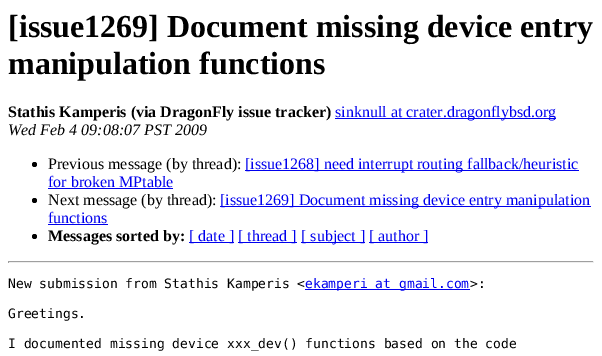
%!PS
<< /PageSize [602 356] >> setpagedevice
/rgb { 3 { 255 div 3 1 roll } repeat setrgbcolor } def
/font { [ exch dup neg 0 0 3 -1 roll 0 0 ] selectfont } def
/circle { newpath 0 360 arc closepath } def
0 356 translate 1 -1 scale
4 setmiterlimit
255 255 255 rgb
0 0 602 356 rectfill
0 0 238 rgb
335 118 221 1 rectfill
0 0 0 rgb
34.5 164.5 2.5 circle fill
0 0 238 rgb
245 170 334 1 rectfill
48 188 125 1 rectfill
0 0 0 rgb
34.5 200.5 2.5 circle fill
0 0 238 rgb
220 206 371 1 rectfill
48 224 60 1 rectfill
0 0 0 rgb
34.5 236.5 2.5 circle fill
[
  [189 242 45 1 0 0 238]
  [238 242 59 1 0 0 238]
  [301 242 64 1 0 0 238]
  [369 242 59 1 0 0 238]
  [8 261 586 1 159 159 159]
  [593 261 1 2 238 238 238]
  [8 262 586 1 238 238 238]
  [8 261 1 2 159 159 159]
  [305 289 165 1 0 0 238]
] { aload pop rgb rectfill } forall
/LiberationSerif-Bold 32 font
0 0 0 rgb
8 37 moveto ([issue1269] Document missing device entry) show
8 74 moveto (manipulation functions) show
/LiberationSerif-Bold 16 font
8 117 moveto (Stathis Kamperis \(via DragonFly issue tracker\)) show
/LiberationSerif-Regular 16 font
0 0 238 rgb
335 117 moveto (sinknull at crater.dragonflybsd.org) show
/LiberationSerif-Italic 16 font
0 0 0 rgb
8 135 moveto (Wed Feb 4 09:08:07 PST 2009) show
/LiberationSerif-Regular 16 font
48 169 moveto (Previous message \(by thread\):) show
0 0 238 rgb
245 169 moveto ([issue1268] need interrupt routing fallback/heuristic) show
48 187 moveto (for broken MPtable) show
0 0 0 rgb
48 205 moveto (Next message \(by thread\):) show
0 0 238 rgb
220 205 moveto ([issue1269] Document missing device entry manipulation) show
48 223 moveto (functions) show
/LiberationSerif-Bold 16 font
0 0 0 rgb
48 241 moveto (Messages sorted by:) show
/LiberationSerif-Regular 16 font
0 0 238 rgb
[
  [([ date ]) 189 241]
  [([ thread ]) 238 241]
  [([ subject ]) 301 241]
  [([ author ]) 369 241]
] { aload pop moveto show } forall
/DejaVuSansMono-Regular 13 font
0 0 0 rgb
8 288 moveto (New submission from Stathis Kamperis <) show
0 0 238 rgb
305 288 moveto (ekamperi at gmail.com) show
0 0 0 rgb
[
  [(>:) 470 288]
  [(Greetings.) 8 318]
  [(I documented missing device xxx_dev\(\) functions based on the code) 8 348]
] { aload pop moveto show } forall
showpage
